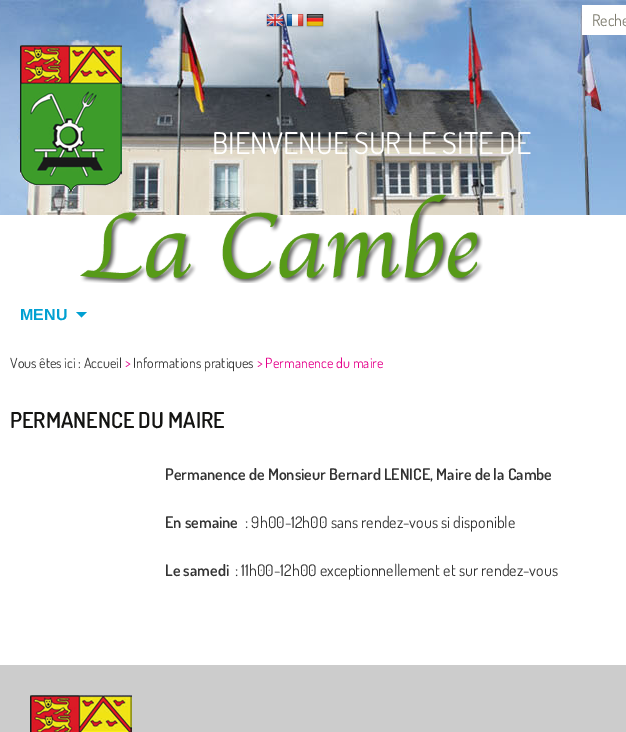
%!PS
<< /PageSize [626 732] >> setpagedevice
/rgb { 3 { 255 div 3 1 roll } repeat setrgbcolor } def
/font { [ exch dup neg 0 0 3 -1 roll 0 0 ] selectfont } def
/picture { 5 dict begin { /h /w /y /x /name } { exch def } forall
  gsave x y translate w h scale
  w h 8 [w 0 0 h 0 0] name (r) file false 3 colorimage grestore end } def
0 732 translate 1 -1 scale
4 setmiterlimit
255 255 255 rgb
0 0 626 732 rectfill
(img/1.rgb) 0 0 626 215 picture
(img/2.rgb) 266 14 18 14 picture
(img/3.rgb) 286 14 18 14 picture
(img/4.rgb) 306 14 18 14 picture
582 5 44 30 rectfill
(img/5.rgb) 20 45 102 149 picture
(img/6.rgb) 80 194 403 89 picture
0 160 210 rgb
76 312 moveto 81.5 317.5 lineto 87 312 lineto closepath fill
204 204 204 rgb
0 665 626 67 rectfill
(img/7.rgb) 30 695 102 37 picture
/Dosis-Regular 16 font
125 123 109 rgb
592 26 moveto (Reche) show
/Dosis-Regular 30 font
255 255 255 rgb
212 154 moveto (BIENVENUE SUR LE SITE DE) show
/LiberationSans-Bold 16 font
0 160 210 rgb
20 320 moveto (MENU) show
/Dosis-Regular 14 font
51 51 51 rgb
10 368 moveto (Vous êtes ici : Accueil) show
229 0 138 rgb
125 368 moveto (>) show
51 51 51 rgb
133 368 moveto (Informations pratiques) show
229 0 138 rgb
257 368 moveto (> Permanence du maire) show
/Dosis-SemiBold 22 font
20 20 18 rgb
10 428 moveto (PERMANENCE DU MAIRE) show
/Dosis-SemiBold 16 font
51 51 51 rgb
165 480 moveto (Permanence de Monsieur Bernard LENICE, Maire de la Cambe) show
165 528 moveto (En semaine) show
/Dosis-Regular 16 font
245 528 moveto (: 9h00-12h00 sans rendez-vous si disponible) show
/Dosis-SemiBold 16 font
165 576 moveto (Le samedi) show
/Dosis-Regular 16 font
235 576 moveto (: 11h00-12h00 exceptionnellement et sur rendez-vous) show
showpage
